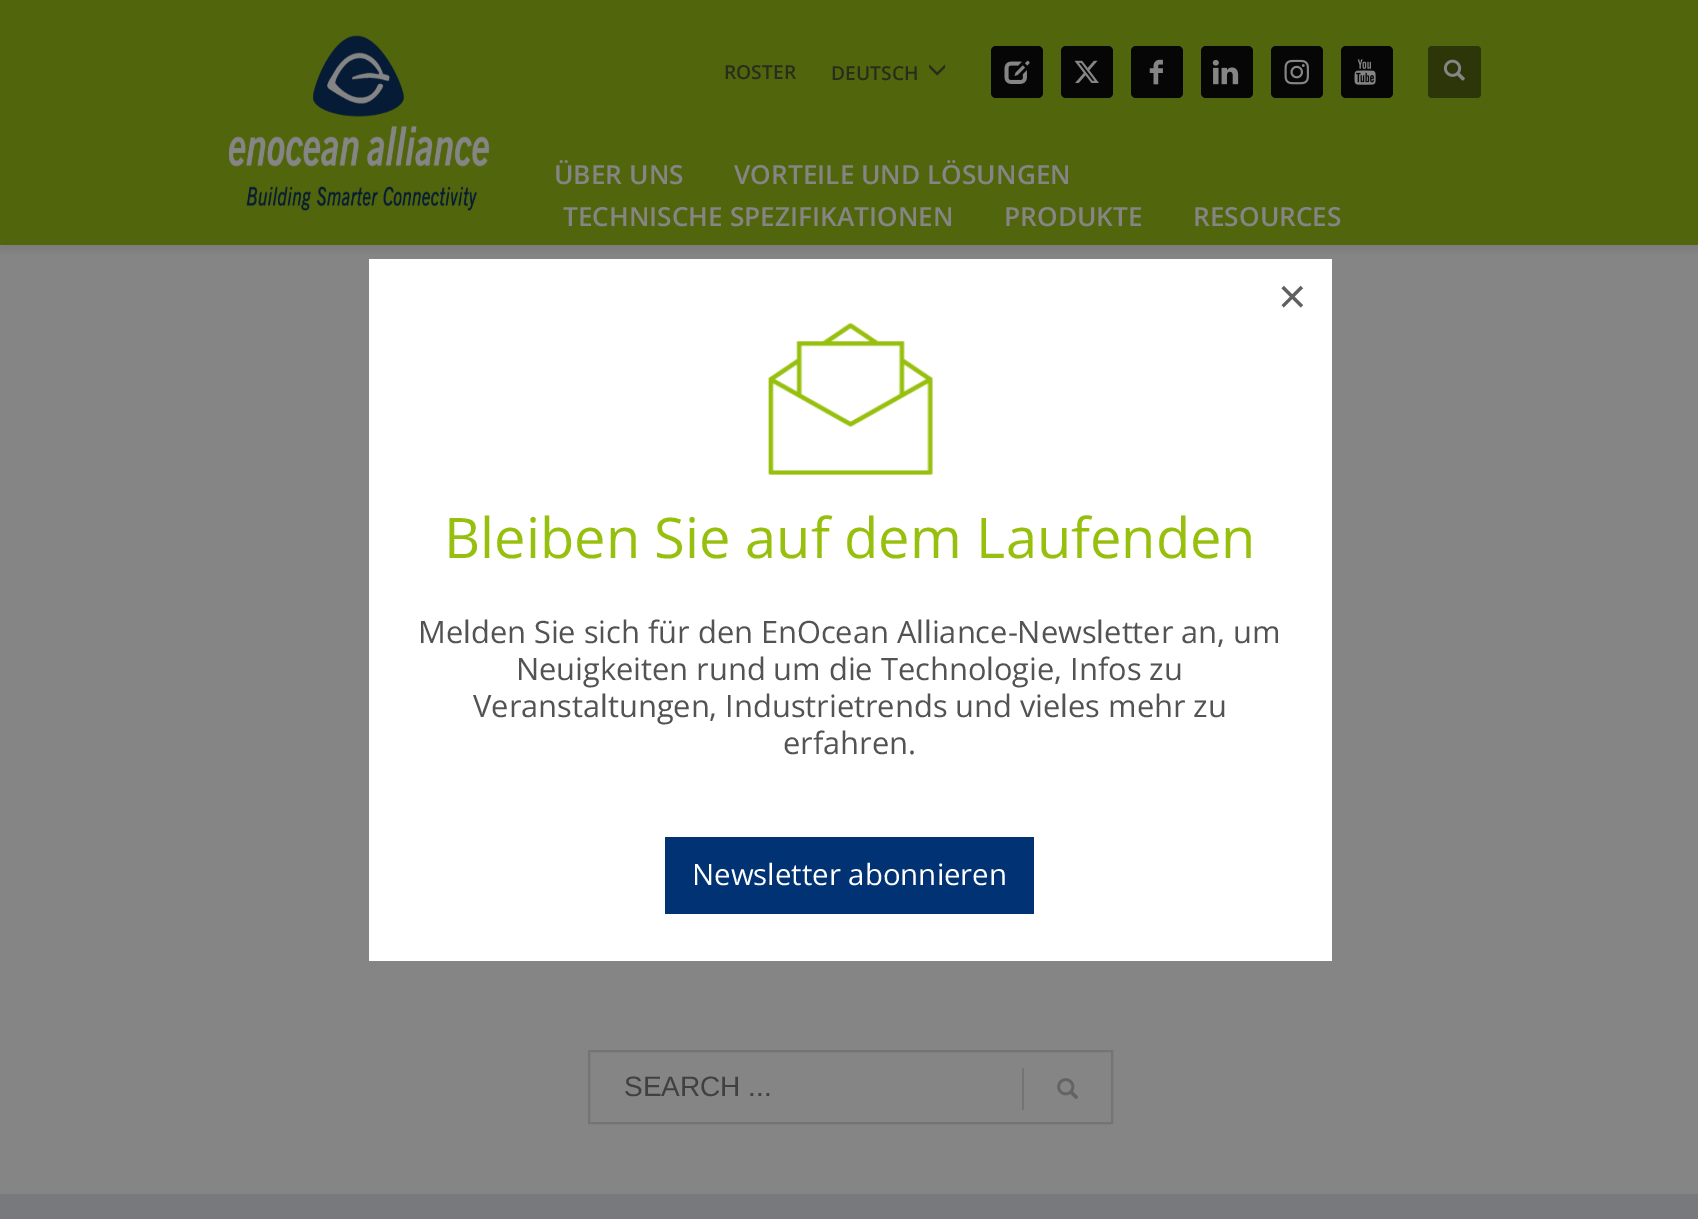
%!PS
<< /PageSize [1698 1219] /PageUsesTransparency true >> setpagedevice
/rgb { 3 { 255 div 3 1 roll } repeat setrgbcolor } def
/font { [ exch dup neg 0 0 3 -1 roll 0 0 ] selectfont } def
/alpha { dup .setfillconstantalpha .setstrokeconstantalpha } def
/roundrect { 5 dict begin { /r /h /w /y /x } { exch def } forall
  x r add y moveto x w add y 2 copy h add r arct x w add y h add x 1 index r arct
  x y h add x y r arct x y 2 copy exch w add exch r arct closepath end } def
/shadow { 12 dict begin { /a /b /q /h /w /y /x } { exch def } forall gsave /was 0 def
  9 -2 -9 { dup b mul 4 div /e exch def 1 sub .425 mul 2.718 exch exp 1 add a .99 .min exch div /now exch def
    1 1 now sub 1 was sub div sub alpha /was now def
    w h .min e 2 mul add 0 gt { x e sub y e sub w e 2 mul add h e 2 mul add
      q e add b .6 mul add w h .min 2 div e add .min 0 .max roundrect fill } if } for grestore end } def
/picture { 5 dict begin { /h /w /y /x /name } { exch def } forall
  gsave x y translate w h scale
  w h 8 [w 0 0 h 0 0] name (r) file false 3 colorimage grestore end } def
0 .pushpdf14devicefilter
0 1219 translate 1 -1 scale
4 setmiterlimit
133 133 133 rgb
0 0 1698 1219 rectfill
6 6 6 rgb
0 5 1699 245 0 4.5 0.1 shadow
81 101 12 rgb
0 0 1698 245 rectfill
(img/1.rgb) 229 35 261 176 picture
(img/2.rgb) 929 64 17 12 picture
6 6 6 rgb
991 46 52 52 5 roundrect fill
(img/3.rgb) 1004 60 26 24 picture
1061 46 52 52 5 roundrect fill
(img/4.rgb) 1074 60 25 23 picture
1131 46 52 52 5 roundrect fill
(img/5.rgb) 1149 59 14 26 picture
1201 46 52 52 5 roundrect fill
(img/6.rgb) 1212 60 27 25 picture
1271 46 52 52 5 roundrect fill
(img/7.rgb) 1284 59 25 26 picture
1341 46 52 52 5 roundrect fill
(img/8.rgb) 1354 59 22 26 picture
44 54 9 rgb
1428 46 53 52 4 roundrect fill
(img/9.rgb) 1443 59 22 22 picture
116 116 116 rgb
2 setlinewidth
589 1051 523 72 rectstroke
1022 1068 2 42 rectfill
(img/10.rgb) 1057 1078 21 21 picture
119 121 124 rgb
0 1194 1698 25 rectfill
255 255 255 rgb
369 259 963 702 rectfill
(img/11.rgb) 768 323 165 152 picture
0 50 116 rgb
665 837 369 77 rectfill
/OpenSans-SemiBold 19.25 font
41 45 27 rgb
724 79 moveto (ROSTER) show
831 80 moveto (DEUTSCH) show
/OpenSans-SemiBold 26.25 font
133 133 133 rgb
[
  [(ÜBER UNS) 554 184]
  [(VORTEILE UND LÖSUNGEN) 734 184]
  [(TECHNISCHE SPEZIFIKATIONEN) 563 226]
  [(PRODUKTE) 1004 226]
  [(RESOURCES) 1193 226]
] { aload pop moveto show } forall
/LiberationSans-Regular 28 font
64 64 64 rgb
624 1096 moveto (SEARCH ...) show
/LiberationSans-Regular 49 font
96 96 96 rgb
1278 313 moveto (×) show
/OpenSans-Regular 56 font
151 191 13 rgb
444 558 moveto (Bleiben Sie auf dem Laufenden) show
/OpenSans-Regular 30.8 font
83 83 83 rgb
[
  [(Melden Sie sich für den EnOcean Alliance-Newsletter an, um) 418 643]
  [(Neuigkeiten rund um die Technologie, Infos zu) 516 680]
  [(Veranstaltungen, Industrietrends und vieles mehr zu) 473 717]
  [(erfahren.) 783 754]
] { aload pop moveto show } forall
/OpenSans-Regular 29.4 font
255 255 255 rgb
692 885 moveto (Newsletter abonnieren) show
.poppdf14devicefilter showpage
